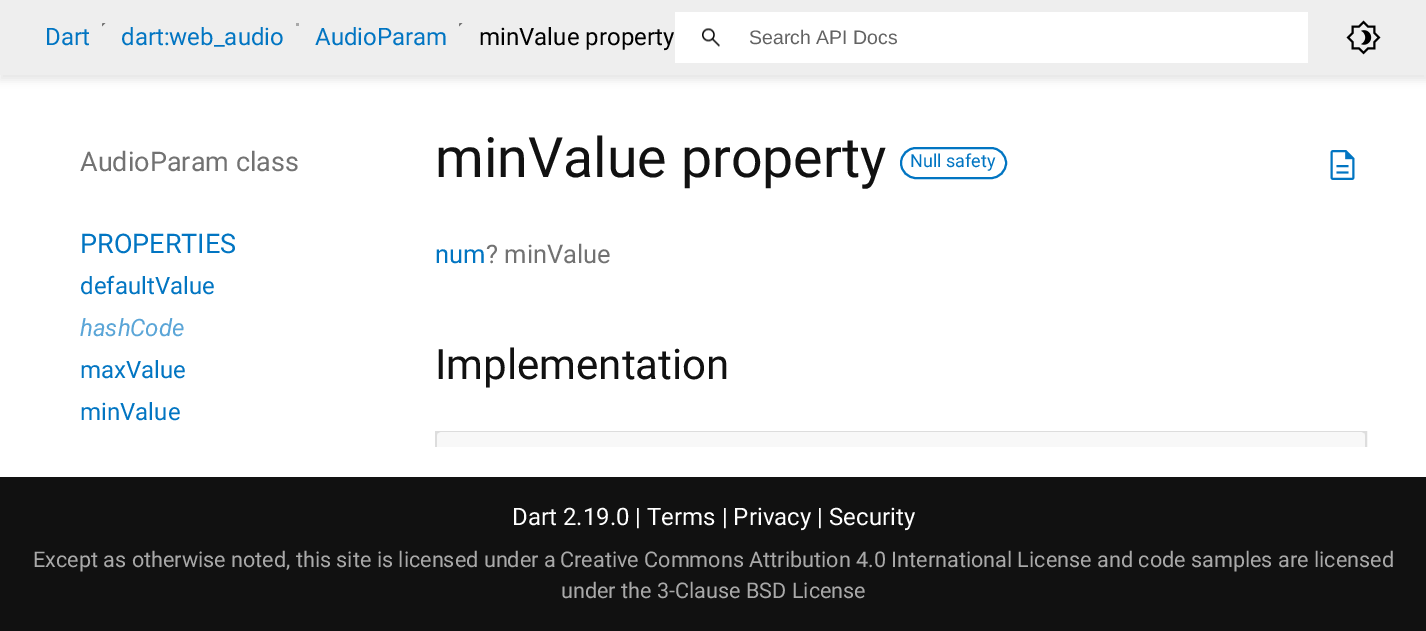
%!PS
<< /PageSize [1426 631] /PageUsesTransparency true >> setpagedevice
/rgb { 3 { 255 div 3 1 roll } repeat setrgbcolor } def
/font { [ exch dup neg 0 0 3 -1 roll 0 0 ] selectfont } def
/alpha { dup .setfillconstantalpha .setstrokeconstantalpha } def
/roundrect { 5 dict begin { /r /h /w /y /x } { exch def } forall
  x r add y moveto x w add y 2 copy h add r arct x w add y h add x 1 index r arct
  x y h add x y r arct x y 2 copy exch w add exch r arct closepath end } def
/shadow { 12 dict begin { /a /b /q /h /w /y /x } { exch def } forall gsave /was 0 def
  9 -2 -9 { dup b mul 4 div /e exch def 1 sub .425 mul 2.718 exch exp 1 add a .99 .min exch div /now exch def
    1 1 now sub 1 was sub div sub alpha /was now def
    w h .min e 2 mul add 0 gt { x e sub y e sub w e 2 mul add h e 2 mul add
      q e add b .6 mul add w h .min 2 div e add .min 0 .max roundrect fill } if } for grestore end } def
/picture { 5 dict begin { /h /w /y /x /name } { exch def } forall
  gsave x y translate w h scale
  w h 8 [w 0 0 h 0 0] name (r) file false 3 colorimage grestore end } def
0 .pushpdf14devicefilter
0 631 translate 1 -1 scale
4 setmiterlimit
255 255 255 rgb
0 0 1426 631 rectfill
0 0 0 rgb
0 5 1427 75 0 4 0.1 shadow
238 238 238 rgb
0 0 1426 75 rectfill
(img/1.rgb) 102 23 4 4 picture
169 169 169 rgb
296 23 3 3 rectfill
(img/1.rgb) 459 23 4 4 picture
255 255 255 rgb
675 12 633 51 rectfill
(img/2.rgb) 702 28 18 19 picture
(img/3.rgb) 1346 20 35 35 picture
1 117 194 rgb
2 setlinewidth
901 148 105 30 15 roundrect stroke
(img/4.rgb) 1330 150 25 30 picture
238 238 238 rgb
437 433 928 4 rectfill
17 17 17 rgb
0 477 1426 154 rectfill
gsave
405 105 992 342 rectclip
221 221 221 rgb
436 432 930 52 rectstroke
grestore
248 248 248 rgb
442 432 moveto 1360 432 lineto 1363 432 1365 434 1365 437 curveto 1365 447 lineto 437 447 lineto 437 437 lineto 437 434 439 432 442 432 curveto closepath fill
/Roboto-Regular 24 font
1 117 194 rgb
[
  [(Dart) 45 45]
  [(dart:web_audio) 121 45]
  [(AudioParam) 315 45]
] { aload pop moveto show } forall
0 0 0 rgb
479 45 moveto (minValue property) show
/LiberationSans-Regular 19.5 font
99 99 99 rgb
749 44 moveto (Search API Docs) show
/Roboto-Regular 27 font
114 114 114 rgb
80 171 moveto (AudioParam class) show
1 117 194 rgb
80 253 moveto (PROPERTIES) show
/Roboto-Regular 24 font
80 294 moveto (defaultValue) show
/Roboto-Italic 24 font
90 165 215 rgb
80 336 moveto (hashCode) show
/Roboto-Regular 24 font
1 117 194 rgb
80 378 moveto (maxValue) show
80 420 moveto (minValue) show
/Roboto-Regular 55.5 font
17 17 17 rgb
435 177 moveto (minValue property) show
/Roboto-Regular 18 font
1 117 194 rgb
910 167 moveto (Null safety) show
/Roboto-Regular 25.5 font
435 263 moveto (num) show
114 114 114 rgb
486 263 moveto (? minValue) show
/Roboto-Regular 42 font
17 17 17 rgb
435 379 moveto (Implementation) show
/Roboto-Regular 24 font
255 255 255 rgb
512 525 moveto (Dart 2.19.0 | Terms | Privacy | Security) show
/Roboto-Regular 21.6 font
169 169 169 rgb
[
  [(Except as otherwise noted, this site is licensed under a) 33 567]
  [(Creative Commons Attribution 4.0 International License) 560 567]
  [(and code samples are licensed) 1097 567]
  [(under the 3-Clause BSD License) 561 598]
] { aload pop moveto show } forall
.poppdf14devicefilter showpage
